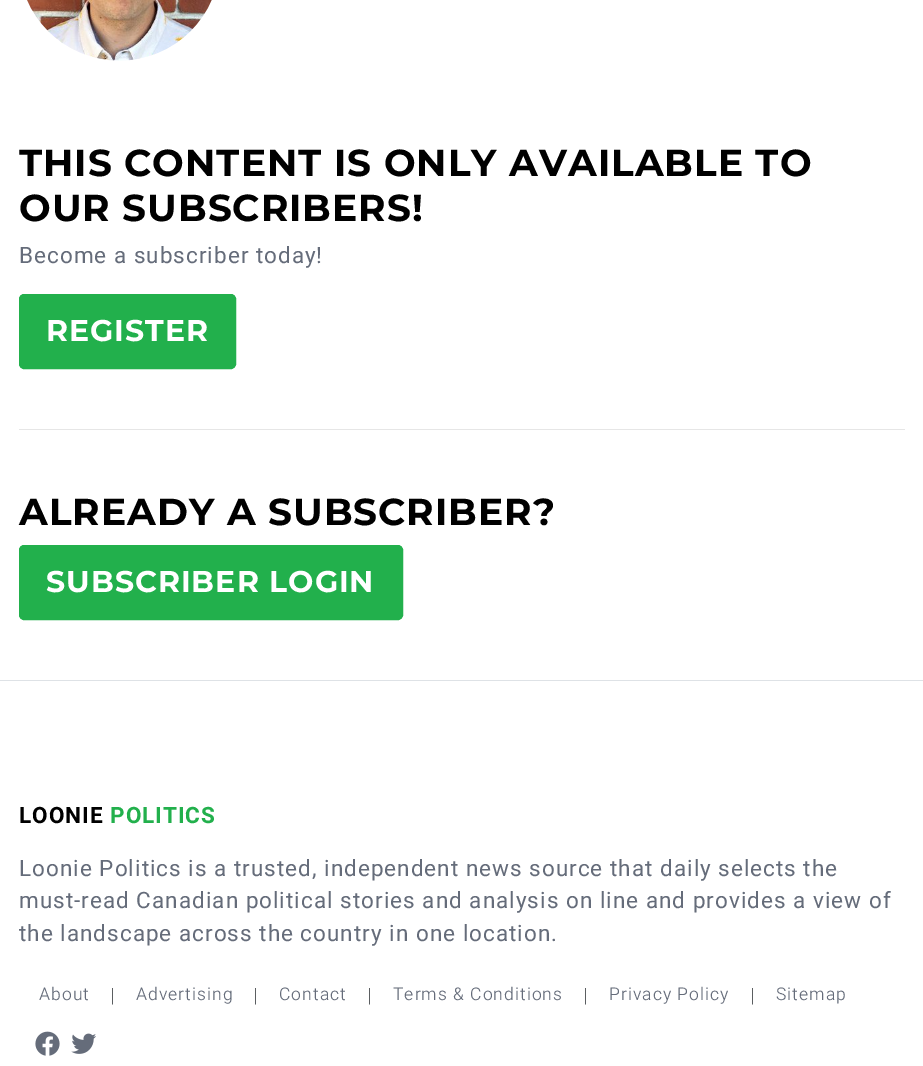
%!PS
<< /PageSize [923 1066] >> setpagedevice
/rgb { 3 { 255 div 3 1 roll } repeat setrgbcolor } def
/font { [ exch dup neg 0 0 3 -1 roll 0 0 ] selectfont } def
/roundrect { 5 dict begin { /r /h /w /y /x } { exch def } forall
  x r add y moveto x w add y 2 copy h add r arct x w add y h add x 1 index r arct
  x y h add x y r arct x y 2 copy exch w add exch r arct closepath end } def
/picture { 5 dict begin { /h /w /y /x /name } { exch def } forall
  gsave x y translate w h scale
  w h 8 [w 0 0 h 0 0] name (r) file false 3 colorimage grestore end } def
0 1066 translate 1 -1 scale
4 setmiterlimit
255 255 255 rgb
0 0 923 1066 rectfill
(img/1.rgb) 27 0 185 61 picture
34 176 76 rgb
19.5 294.5 216 74 4.5 roundrect gsave fill grestore
stroke
230 230 230 rgb
19 429 886 1 rectfill
34 176 76 rgb
19.5 545.5 383 74 4.5 roundrect gsave fill grestore
stroke
222 226 230 rgb
0 680 923 1 rectfill
(img/2.rgb) 35 1031 25 25 picture
(img/3.rgb) 71 1033 25 21 picture
/Montserrat-Bold 37.5 font
0 0 0 rgb
19 176 moveto 1 0 (THIS CONTENT IS ONLY AVAILABLE TO) ashow
19 221 moveto 1 0 (OUR SUBSCRIBERS!) ashow
/Heebo-Regular 22.5 font
101 108 122 rgb
19 263 moveto 1 0 (Become a subscriber today!) ashow
/Montserrat-Bold 30 font
255 255 255 rgb
46 341 moveto 1 0 (REGISTER) ashow
/Montserrat-Bold 37.5 font
0 0 0 rgb
19 525 moveto 1 0 (ALREADY A SUBSCRIBER?) ashow
/Montserrat-Bold 30 font
255 255 255 rgb
46 592 moveto 1 0 (SUBSCRIBER LOGIN) ashow
/Heebo-Bold 22.5 font
0 0 0 rgb
19 823 moveto 1 0 (LOONIE) ashow
34 176 76 rgb
110 823 moveto 1 0 (POLITICS) ashow
/Heebo-Regular 22.5 font
101 108 122 rgb
19 876 moveto 1 0 (Loonie Politics is a trusted, independent news source that daily selects the) ashow
19 908 moveto 1 0 (must-read Canadian political stories and analysis on line and provides a view of) ashow
19 941 moveto 1 0 (the landscape across the country in one location.) ashow
/Heebo-Light 17.5 font
39 1000 moveto 1 0 (About) ashow
/Montserrat-Light 17.5 font
33 37 41 rgb
110 1001 moveto 1 0 (|) ashow
/Heebo-Light 17.5 font
101 108 122 rgb
136 1000 moveto 1 0 (Advertising) ashow
/Montserrat-Light 17.5 font
33 37 41 rgb
253 1001 moveto 1 0 (|) ashow
/Heebo-Light 17.5 font
101 108 122 rgb
279 1000 moveto 1 0 (Contact) ashow
/Montserrat-Light 17.5 font
33 37 41 rgb
367 1001 moveto 1 0 (|) ashow
/Heebo-Light 17.5 font
101 108 122 rgb
393 1000 moveto 1 0 (Terms & Conditions) ashow
/Montserrat-Light 17.5 font
33 37 41 rgb
583 1001 moveto 1 0 (|) ashow
/Heebo-Light 17.5 font
101 108 122 rgb
609 1000 moveto 1 0 (Privacy Policy) ashow
/Montserrat-Light 17.5 font
33 37 41 rgb
750 1001 moveto 1 0 (|) ashow
/Heebo-Light 17.5 font
101 108 122 rgb
776 1000 moveto 1 0 (Sitemap) ashow
showpage
